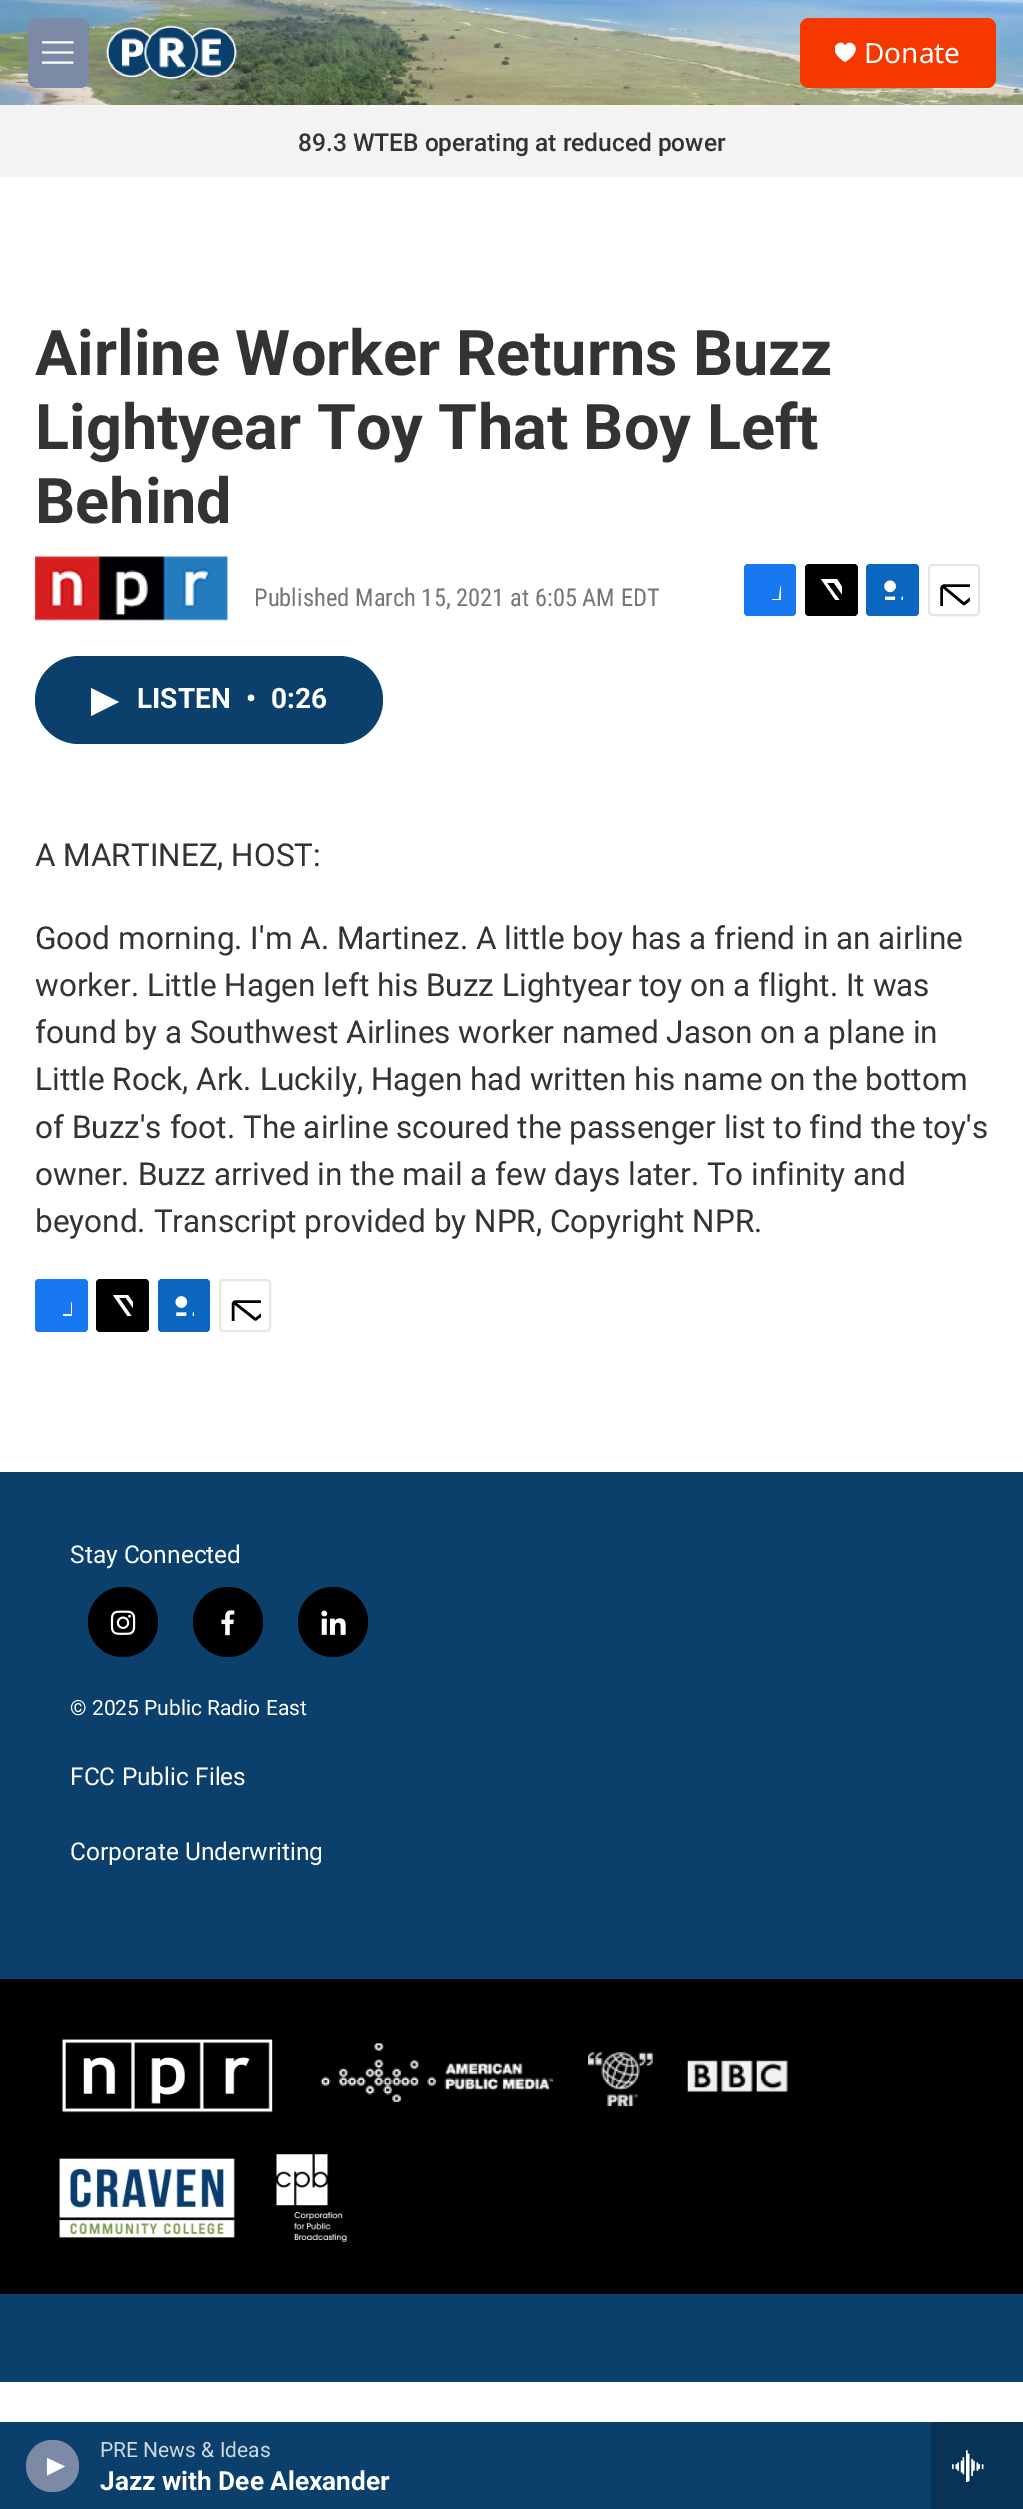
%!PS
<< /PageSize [1023 2509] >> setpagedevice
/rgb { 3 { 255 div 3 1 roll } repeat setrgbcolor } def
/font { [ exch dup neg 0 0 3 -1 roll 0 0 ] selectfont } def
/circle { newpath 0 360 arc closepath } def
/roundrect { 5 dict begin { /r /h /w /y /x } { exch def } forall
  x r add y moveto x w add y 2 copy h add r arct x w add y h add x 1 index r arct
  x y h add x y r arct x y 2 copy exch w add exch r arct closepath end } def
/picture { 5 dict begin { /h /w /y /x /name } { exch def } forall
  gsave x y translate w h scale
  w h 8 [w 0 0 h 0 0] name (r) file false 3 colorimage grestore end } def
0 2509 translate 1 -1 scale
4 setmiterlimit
255 255 255 rgb
0 0 1023 2509 rectfill
245 245 245 rgb
0 105 1023 2 rectfill
(img/1.rgb) 0 0 1023 105 picture
125 138 166 rgb
28 18 61 70 9 roundrect fill
(img/2.rgb) 42 41 32 23 picture
(img/3.rgb) 106 17 131 71 picture
245 55 0 rgb
800 18 196 70 9 roundrect fill
gsave
835 42 21 21 rectclip
255 255 255 rgb
845 46 moveto 842 37 823.5 48.5 845 62 curveto 867 48.5 848.5 37 845 46 curveto closepath fill
grestore
10 64 107 rgb
0 2422 931 87 rectfill
125 138 166 rgb
26 2440 53 52 26 roundrect fill
255 255 255 rgb
47 2458 moveto 65 2466.5 lineto 47 2475.5 lineto closepath fill
8 51 86 rgb
931 2422 92 87 rectfill
(img/4.rgb) 952 2450 32 32 picture
243 243 243 rgb
0 107 1023 70 rectfill
(img/5.rgb) 35 556 193 65 picture
23 120 242 rgb
744 564 52 52 4 roundrect fill
gsave
760 579 21 21 rectclip
255 255 255 rgb
789 616 moveto 779 616 lineto 779 607 lineto 772 607 lineto 772 599 lineto 779 599 lineto 780 589 lineto 781 580.5 788.5 579 796 580 curveto 796 588 lineto 788.5 588 788.5 589 789 595 curveto 789 599 lineto 796 599 lineto 796 607 lineto 789 607 lineto closepath fill
grestore
0 0 0 rgb
805 564 53 52 4 roundrect fill
gsave
821 579 21 21 rectclip
255 255 255 rgb
852 601 moveto 858 610 lineto 858 611.5 858 613.5 856.5 615 curveto 834 583 lineto 827 583 lineto 851 616 lineto 846.5 616 lineto 843 611 lineto 839 616 lineto 834.5 616 lineto 841 608 lineto 821 579 lineto 837 579 lineto 850 599 lineto 858 589 lineto 858 594 lineto closepath fill
grestore
10 102 193 rgb
866 564 53 52 4 roundrect fill
(img/6.rgb) 884 580 19 20 picture
230 230 230 rgb
2 setlinewidth
929 565 50 50 3 roundrect stroke
gsave
938 574 32 32 rectclip
0 0 0 rgb
2.6 setlinewidth
1 setlinecap
1 setlinejoin
987 612.5 moveto 987 614 985.5 615.5 983.5 615.5 curveto 945 615.5 lineto 943 615.5 941.5 614 941.5 612.5 curveto 941.5 589 lineto 941.5 587 943 585.5 945 585.5 curveto 983.5 585.5 lineto 985.5 585.5 987 587 987 589 curveto closepath 985.5 586.5 moveto 964 604 lineto 943 586.5 lineto stroke
grestore
10 64 107 rgb
35 656 348 88 44 roundrect fill
255 255 255 rgb
91 688 moveto 119 702 lineto 91 716 lineto closepath fill
23 120 242 rgb
35 1279 53 53 4 roundrect fill
gsave
51 1295 21 21 rectclip
255 255 255 rgb
80 1332 moveto 71 1332 lineto 71 1323 lineto 63 1323 lineto 63 1314 lineto 71 1314 lineto 71 1305 lineto 72 1296.5 80.5 1295 88 1296 curveto 88 1304 lineto 78.5 1304 80 1306.5 80 1314 curveto 88 1314 lineto 87 1323 lineto 80 1323 lineto closepath fill
grestore
0 0 0 rgb
96 1279 53 53 4 roundrect fill
gsave
112 1295 21 21 rectclip
255 255 255 rgb
143 1317 moveto 149 1325.5 lineto 149 1327 149 1329 148.5 1330 curveto 126 1298 lineto 119 1298 lineto 142.5 1332 lineto 138.5 1332 lineto 135 1327 lineto 130.5 1332 lineto 126 1332 lineto 133 1324 lineto 113 1295 lineto 128 1295 lineto 141 1314 lineto 149 1305 lineto 149 1310 lineto closepath fill
grestore
10 102 193 rgb
158 1279 52 53 4 roundrect fill
(img/7.rgb) 175 1296 19 20 picture
230 230 230 rgb
220 1280 50 51 3 roundrect stroke
gsave
229 1290 32 31 rectclip
0 0 0 rgb
2.6 setlinewidth
1 setlinecap
1 setlinejoin
278 1328 moveto 278 1330 276.5 1331.5 275 1331.5 curveto 236 1331.5 lineto 234.5 1331.5 233 1330 233 1328 curveto 233 1304.5 lineto 233 1303 234.5 1301.5 236 1301.5 curveto 275 1301.5 lineto 276.5 1301.5 278 1303 278 1304.5 curveto closepath 277 1302.5 moveto 255.5 1319.5 lineto 234 1302.5 lineto stroke
grestore
10 64 107 rgb
0 1472 1023 910 rectfill
0 0 0 rgb
123 1622 35 circle fill
(img/8.rgb) 110 1610 26 25 picture
228 1622 35 circle fill
(img/9.rgb) 221 1610 14 26 picture
333 1622 35 circle fill
(img/10.rgb) 321 1610 25 25 picture
0 1979 1023 315 rectfill
(img/11.rgb) 62 2038 211 75 picture
(img/12.rgb) 320 2043 233 59 picture
(img/13.rgb) 588 2051 65 56 picture
(img/14.rgb) 687 2060 101 33 picture
(img/15.rgb) 59 2158 176 80 picture
(img/16.rgb) 276 2154 71 88 picture
/NotoSans-Regular 28 font
255 255 255 rgb
864 63 moveto (Donate) show
/Roboto-Regular 21 font
206 217 225 rgb
100 2457 moveto (PRE News & Ideas) show
/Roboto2-Bold 26.25 font
255 255 255 rgb
100 2490 moveto (Jazz with Dee Alexander) show
/Roboto-Medium 24.5 font
51 51 51 rgb
298 151 moveto (89.3 WTEB operating at reduced power) show
/Roboto-Bold 63 font
[
  [(Airline Worker Returns Buzz) 35 375]
  [(Lightyear Toy That Boy Left) 35 449]
  [(Behind) 35 523]
] { aload pop moveto show } forall
/RobotoCondensed-Regular 24.5 font
118 118 118 rgb
254 606 moveto (Published March 15, 2021 at 6:05 AM EDT) show
/Roboto2-Bold 28 font
255 255 255 rgb
[
  [(LISTEN) 137 708]
  [(•) 246 708]
  [(0:26) 271 708]
] { aload pop moveto show } forall
/Roboto-Regular 31.5 font
51 51 51 rgb
[
  [(A MARTINEZ, HOST:) 35 866]
  [(Good morning. I'm A. Martinez. A little boy has a friend in an airline) 35 949]
  [(worker. Little Hagen left his Buzz Lightyear toy on a flight. It was) 35 996]
  [(found by a Southwest Airlines worker named Jason on a plane in) 35 1043]
  [(Little Rock, Ark. Luckily, Hagen had written his name on the bottom) 35 1090]
  [(of Buzz's foot. The airline scoured the passenger list to find the toy's) 35 1138]
  [(owner. Buzz arrived in the mail a few days later. To infinity and) 35 1185]
  [(beyond. Transcript provided by NPR, Copyright NPR.) 35 1232]
] { aload pop moveto show } forall
/Roboto-Regular 24.5 font
255 255 255 rgb
70 1563 moveto (Stay Connected) show
/Roboto-Regular 21 font
70 1715 moveto (© 2025 Public Radio East) show
/Roboto-Regular 24.5 font
70 1785 moveto (FCC Public Files) show
70 1860 moveto (Corporate Underwriting) show
showpage
